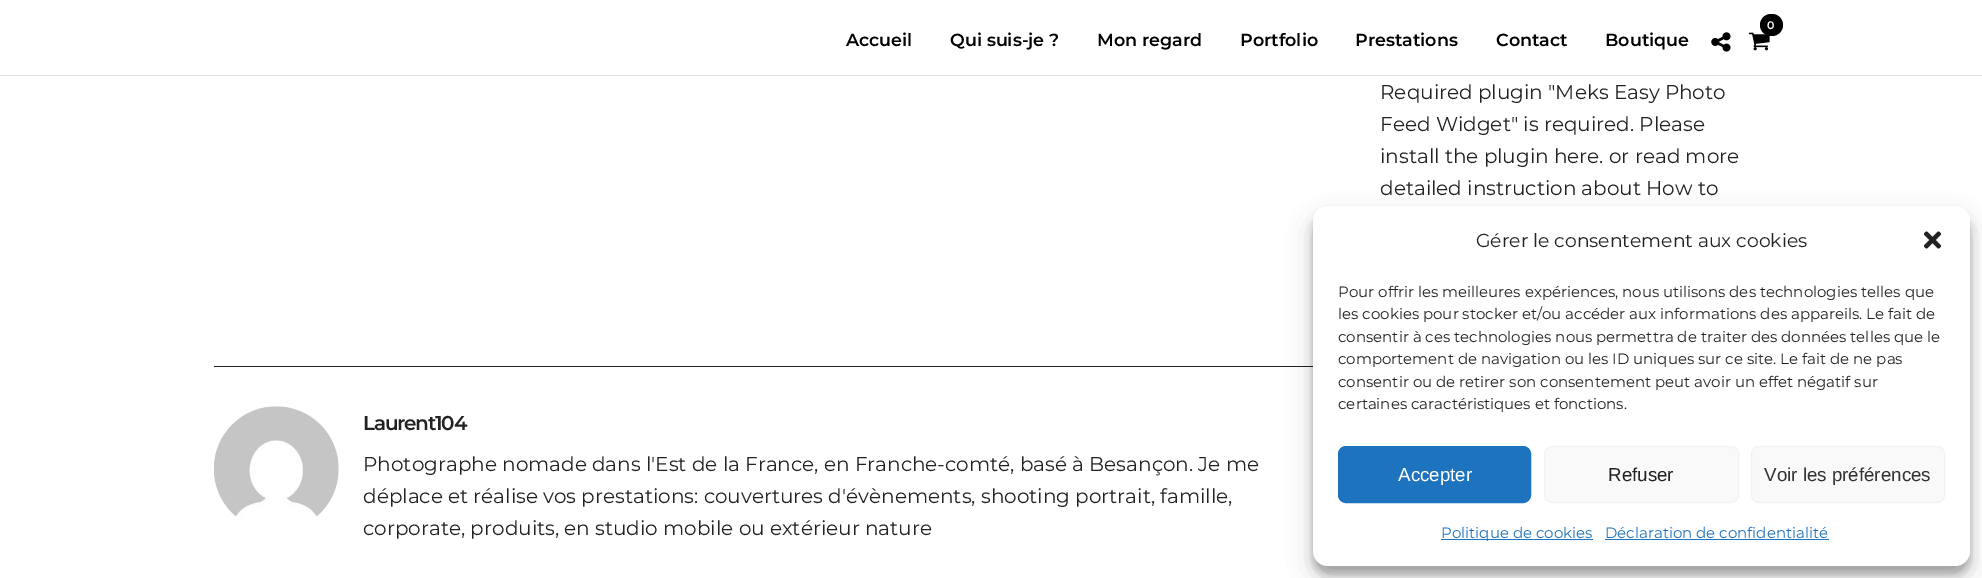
%!PS
<< /PageSize [1982 578] /PageUsesTransparency true >> setpagedevice
/rgb { 3 { 255 div 3 1 roll } repeat setrgbcolor } def
/font { [ exch dup neg 0 0 3 -1 roll 0 0 ] selectfont } def
/alpha { dup .setfillconstantalpha .setstrokeconstantalpha } def
/roundrect { 5 dict begin { /r /h /w /y /x } { exch def } forall
  x r add y moveto x w add y 2 copy h add r arct x w add y h add x 1 index r arct
  x y h add x y r arct x y 2 copy exch w add exch r arct closepath end } def
/shadow { 12 dict begin { /a /b /q /h /w /y /x } { exch def } forall gsave /was 0 def
  9 -2 -9 { dup b mul 4 div /e exch def 1 sub .425 mul 2.718 exch exp 1 add a .99 .min exch div /now exch def
    1 1 now sub 1 was sub div sub alpha /was now def
    w h .min e 2 mul add 0 gt { x e sub y e sub w e 2 mul add h e 2 mul add
      q e add b .6 mul add w h .min 2 div e add .min 0 .max roundrect fill } if } for grestore end } def
/picture { 5 dict begin { /h /w /y /x /name } { exch def } forall
  gsave x y translate w h scale
  w h 8 [w 0 0 h 0 0] name (r) file false 3 colorimage grestore end } def
0 .pushpdf14devicefilter
0 578 translate 1 -1 scale
4 setmiterlimit
255 255 255 rgb
0 0 1982 578 rectfill
225 225 225 rgb
0 75 1982 1 rectfill
(img/1.rgb) 1748 32 22 19 picture
0 0 0 rgb
1760 14 23 22 11 roundrect fill
(img/2.rgb) 1711 32 20 20 picture
34 34 34 rgb
214 366 1104 1 rectfill
(img/3.rgb) 214 406 125 111 picture
0 0 0 rgb
1313 214 657 360 15 4 0.23 shadow
1313 219 657 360 15 12.5 0.19 shadow
255 255 255 rgb
1313 206 657 360 15 roundrect fill
(img/4.rgb) 1923 231 19 18 picture
30 115 190 rgb
1338.5 446.5 192 56 7.5 roundrect gsave fill grestore
stroke
249 249 249 rgb
1544.5 446.5 194 56 7.5 roundrect gsave fill grestore
242 242 242 rgb
stroke
249 249 249 rgb
1751.5 446.5 193 56 7.5 roundrect gsave fill grestore
242 242 242 rgb
stroke
30 115 190 rgb
1441 539 152 1 rectfill
1605 539 224 1 rectfill
/Montserrat-SemiBold 11 font
255 255 255 rgb
1767 29 moveto (0) show
/Montserrat-SemiBold 17.5 font
0 0 0 rgb
[
  [(Accueil) 846 46]
  [(Qui suis-je ?) 950 46]
  [(Mon regard) 1097 46]
  [(Portfolio) 1240 46]
  [(Prestations) 1355 46]
  [(Contact) 1496 46]
  [(Boutique) 1605 46]
] { aload pop moveto show } forall
/Montserrat-Regular 20 font
34 34 34 rgb
[
  [(Required plugin "Meks Easy Photo) 1380 99]
  [(Feed Widget" is required. Please) 1380 131]
  [(install the plugin here. or read more) 1380 163]
  [(detailed instruction about How to) 1380 195]
] { aload pop moveto show } forall
/Montserrat-SemiBold 20 font
363 430 moveto -1.25 0 (Laurent104) ashow
/Montserrat-Regular 20 font
[
  [(Photographe nomade dans l'Est de la France, en Franche-comté, basé à Besançon. Je me) 363 471]
  [(déplace et réalise vos prestations: couvertures d'évènements, shooting portrait, famille,) 363 503]
  [(corporate, produits, en studio mobile ou extérieur nature) 363 535]
] { aload pop moveto show } forall
/Montserrat-Regular 18.75 font
1476 247 moveto (Gérer le consentement aux cookies) show
/Montserrat-Regular 15 font
[
  [(Pour offrir les meilleures expériences, nous utilisons des technologies telles que) 1338 297]
  [(les cookies pour stocker et/ou accéder aux informations des appareils. Le fait de) 1338 319]
  [(consentir à ces technologies nous permettra de traiter des données telles que le) 1338 342]
  [(comportement de navigation ou les ID uniques sur ce site. Le fait de ne pas) 1338 364]
  [(consentir ou de retirer son consentement peut avoir un effet négatif sur) 1338 387]
  [(certaines caractéristiques et fonctions.) 1338 409]
] { aload pop moveto show } forall
/LiberationSans-Regular 18.75 font
255 255 255 rgb
1398 481 moveto (Accepter) show
34 34 34 rgb
1608 481 moveto (Refuser) show
51 51 51 rgb
1764 481 moveto (Voir les préférences) show
/Montserrat-Regular 15 font
30 115 190 rgb
1441 538 moveto (Politique de cookies) show
1605 538 moveto (Déclaration de confidentialité) show
.poppdf14devicefilter showpage
